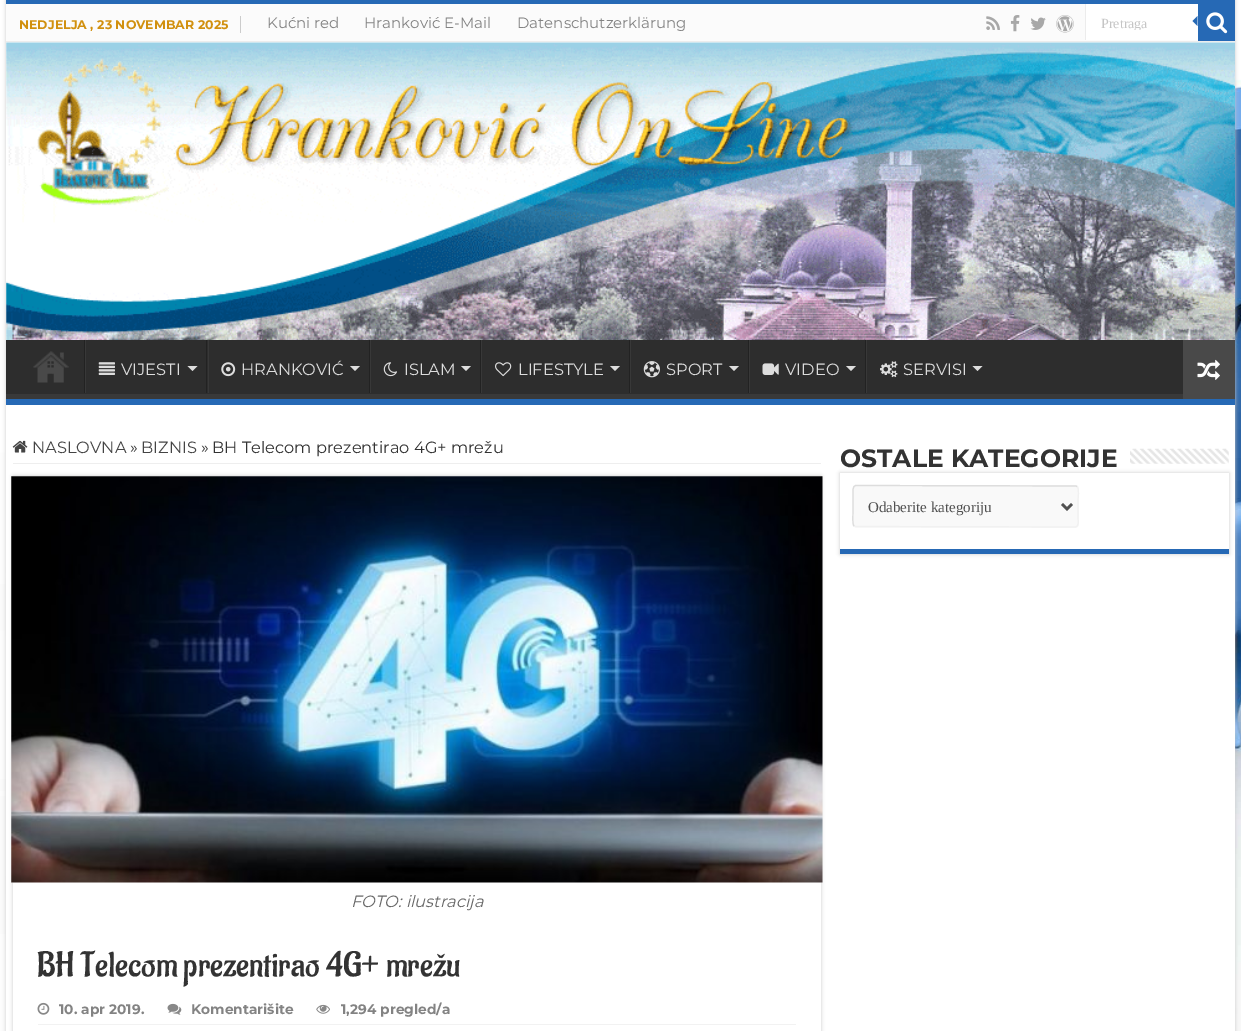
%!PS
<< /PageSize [1241 1031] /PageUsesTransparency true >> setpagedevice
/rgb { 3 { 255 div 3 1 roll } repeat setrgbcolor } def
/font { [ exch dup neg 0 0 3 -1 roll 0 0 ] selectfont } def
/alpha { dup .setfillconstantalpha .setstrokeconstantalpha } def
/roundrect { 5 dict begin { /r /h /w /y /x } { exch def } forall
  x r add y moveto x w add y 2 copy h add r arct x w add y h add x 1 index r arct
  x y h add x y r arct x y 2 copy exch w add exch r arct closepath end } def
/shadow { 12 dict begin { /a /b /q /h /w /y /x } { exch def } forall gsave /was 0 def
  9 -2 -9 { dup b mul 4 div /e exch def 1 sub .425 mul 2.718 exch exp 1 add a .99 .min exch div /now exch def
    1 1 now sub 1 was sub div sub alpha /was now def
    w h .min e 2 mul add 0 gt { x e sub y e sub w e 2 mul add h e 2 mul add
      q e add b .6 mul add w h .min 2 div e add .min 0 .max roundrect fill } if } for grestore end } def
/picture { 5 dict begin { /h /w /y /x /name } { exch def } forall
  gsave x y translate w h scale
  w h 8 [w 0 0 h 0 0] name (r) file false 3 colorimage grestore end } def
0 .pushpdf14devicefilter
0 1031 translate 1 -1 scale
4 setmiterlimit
255 255 255 rgb
0 0 1241 1031 rectfill
(img/1.rgb) 0 0 1241 1031 picture
202 202 202 rgb
6 0 1229 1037 0 2 1 shadow
[
  [6 43 1229 988 255 255 255]
  [6 0 1229 4 38 105 181]
  [6 4 1229 39 251 251 251]
  [6 41 1229 1 236 236 236]
  [240 16 1 17 204 204 204]
] { aload pop rgb rectfill } forall
(img/2.rgb) 986 16 14 14 picture
(img/3.rgb) 1010 15 10 17 picture
(img/4.rgb) 1030 17 16 13 picture
(img/5.rgb) 1056 15 18 18 picture
[
  [1086 4 112 36 255 255 255]
  [1085 4 1 36 236 236 236]
  [1198 4 37 37 38 105 181]
] { aload pop rgb rectfill } forall
(img/6.rgb) 1206 12 22 22 picture
1197.5 16 moveto 1197.5 26 lineto 1192.5 21 lineto closepath fill
(img/7.rgb) 6 42 1229 298 picture
45 45 45 rgb
6 340 1177 54 rectfill
gsave
6 340 1229 59 rectclip
57 57 57 rgb
-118 216 moveto 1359 216 lineto 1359 522 lineto -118 522 lineto closepath 5 332 moveto 1234 332 lineto 1234 332 1235 333 1235 334 curveto 1235 392 lineto 1235 393 1234 394 1234 394 curveto 5 394 lineto 4 394 4 393 4 392 curveto 4 334 lineto 4 333 4 332 5 332 curveto closepath eofill
grestore
38 105 181 rgb
6 399 1229 6 rectfill
(img/8.rgb) 33 351 36 32 picture
34 34 34 rgb
84 340 1 53 rectfill
56 56 56 rgb
85 340 1 53 rectfill
(img/9.rgb) 98 362 17 13 picture
221 221 221 rgb
187.5 366 moveto 197.5 366 lineto 192.5 371 lineto closepath fill
34 34 34 rgb
206 340 1 53 rectfill
56 56 56 rgb
208 340 1 53 rectfill
(img/10.rgb) 221 362 15 15 picture
221 221 221 rgb
350 366 moveto 360 366 lineto 355 371 lineto closepath fill
34 34 34 rgb
369 340 1 53 rectfill
56 56 56 rgb
370 340 1 53 rectfill
(img/11.rgb) 383 362 14 15 picture
221 221 221 rgb
461 366 moveto 471 366 lineto 466 371 lineto closepath fill
34 34 34 rgb
480 340 1 53 rectfill
56 56 56 rgb
481 340 1 53 rectfill
(img/12.rgb) 495 362 17 15 picture
221 221 221 rgb
610 366 moveto 620 366 lineto 615 371 lineto closepath fill
34 34 34 rgb
629 340 1 53 rectfill
56 56 56 rgb
630 340 1 53 rectfill
(img/13.rgb) 643 361 17 17 picture
221 221 221 rgb
729 366 moveto 739 366 lineto 734 371 lineto closepath fill
34 34 34 rgb
748 340 1 53 rectfill
56 56 56 rgb
749 340 1 53 rectfill
(img/14.rgb) 762 363 17 12 picture
221 221 221 rgb
846 366 moveto 856 366 lineto 851 371 lineto closepath fill
34 34 34 rgb
865 340 1 53 rectfill
56 56 56 rgb
866 340 1 53 rectfill
(img/15.rgb) 880 361 18 17 picture
221 221 221 rgb
972.5 366 moveto 982.5 366 lineto 977.5 371 lineto closepath fill
73 73 73 rgb
1183 340 52 59 rectfill
(img/16.rgb) 1197 359 23 21 picture
238 238 238 rgb
13 463 808 1 rectfill
(img/17.rgb) 12 440 16 13 picture
202 202 202 rgb
13 476 808 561 0 2 1 shadow
255 255 255 rgb
13 476 808 555 rectfill
(img/18.rgb) 11 476 812 407 picture
242 242 242 rgb
38 1024 758 1 rectfill
(img/19.rgb) 37 1002 13 13 picture
(img/20.rgb) 167 1003 15 12 picture
(img/21.rgb) 316 1004 14 10 picture
(img/22.rgb) 1130 448 99 16 picture
202 202 202 rgb
840 473 389 81 0 2 1 shadow
255 255 255 rgb
840 473 389 76 rectfill
38 105 181 rgb
840 549 389 5 rectfill
249 249 249 rgb
853 485 226 43 4 roundrect fill
241 241 241 rgb
1.2 setlinewidth
1077 486.5 moveto 1079.5 489 1078 498 1078 500.5 curveto 1078 518 lineto 1078 520 1079.5 527 1075 527 curveto 855.5 526.5 lineto 854 526 lineto stroke
221 221 221 rgb
854 526 moveto 852 523.5 853 514.5 853 512 curveto 853 494.5 lineto 853 492.5 852 485.5 856 485.5 curveto 1076 486 lineto 1077 486.5 lineto stroke
81 81 81 rgb
2.5 setlinewidth
1062 504 moveto 1067 509 lineto 1072 504 lineto stroke
/Montserrat-Bold 12.5 font
209 144 15 rgb
19 29 moveto (NEDJELJA , 23 NOVEMBAR 2025) show
/Montserrat-Regular 15 font
131 131 131 rgb
[
  [(Kućni red) 267 28]
  [(Hranković E-Mail) 364 28]
  [(Datenschutzerklärung) 517 28]
] { aload pop moveto show } forall
gsave
1101 15 82 15 rectclip
/LiberationSerif-Regular 14 font
197 197 197 rgb
1101 28 moveto (Pretraga) show
grestore
/Montserrat-Regular 16.25 font
221 221 221 rgb
[
  [(VIJESTI) 121 375]
  [(HRANKOVIĆ) 241 375]
  [(ISLAM) 404 375]
  [(LIFESTYLE) 518 375]
  [(SPORT) 666 375]
  [(VIDEO) 785 375]
  [(SERVISI) 903 375]
] { aload pop moveto show } forall
68 68 68 rgb
32 453 moveto (NASLOVNA) show
51 51 51 rgb
130 453 moveto (») show
68 68 68 rgb
141 453 moveto (BIZNIS) show
51 51 51 rgb
201 453 moveto (») show
212 453 moveto (BH Telecom prezentirao 4G+ mrežu) show
/Montserrat-Italic 16.25 font
102 102 102 rgb
351 907 moveto (FOTO: ilustracija) show
/Aladin-Regular 35 font
51 51 51 rgb
37 976 moveto (BH Telecom prezentirao 4G+ mrežu) show
/Montserrat-Bold 13.75 font
131 131 131 rgb
[
  [(10. apr 2019.) 59 1014]
  [(Komentarišite) 191 1014]
  [(1,294 pregled/a) 341 1014]
] { aload pop moveto show } forall
/Montserrat-Bold 25 font
51 51 51 rgb
840 467 moveto (OSTALE KATEGORIJE) show
/LiberationSerif-Regular 15 font
81 81 81 rgb
868 512 moveto (Odaberite kategoriju) show
.poppdf14devicefilter showpage
